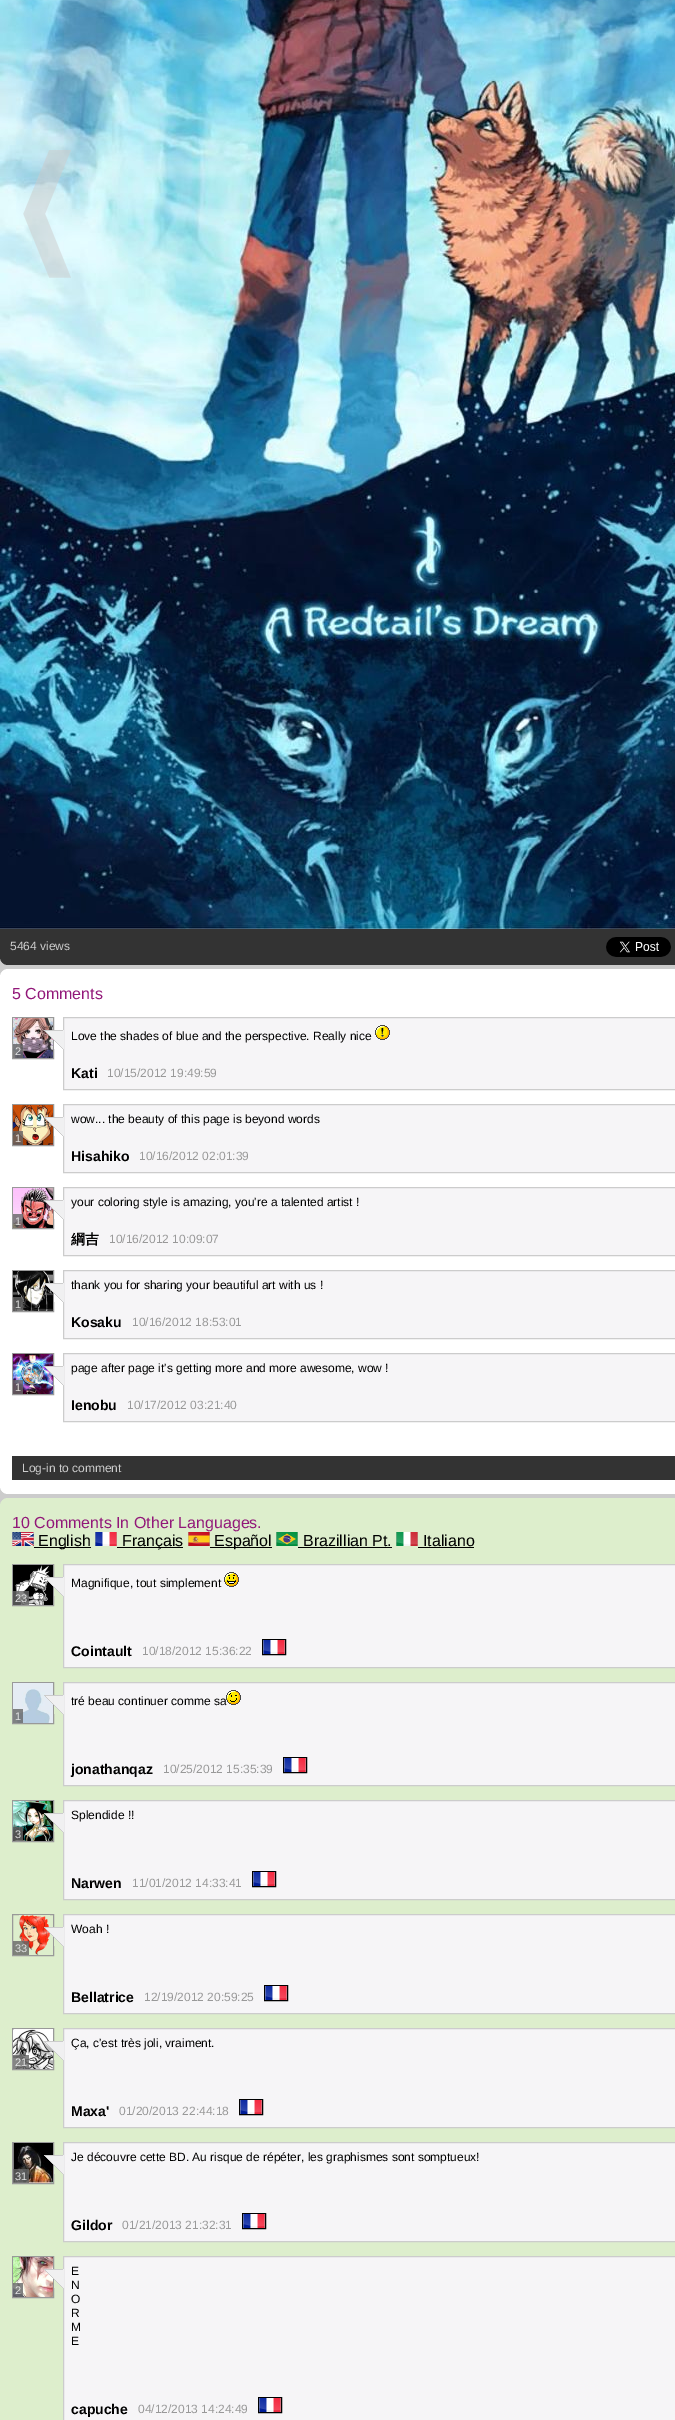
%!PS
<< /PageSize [675 2420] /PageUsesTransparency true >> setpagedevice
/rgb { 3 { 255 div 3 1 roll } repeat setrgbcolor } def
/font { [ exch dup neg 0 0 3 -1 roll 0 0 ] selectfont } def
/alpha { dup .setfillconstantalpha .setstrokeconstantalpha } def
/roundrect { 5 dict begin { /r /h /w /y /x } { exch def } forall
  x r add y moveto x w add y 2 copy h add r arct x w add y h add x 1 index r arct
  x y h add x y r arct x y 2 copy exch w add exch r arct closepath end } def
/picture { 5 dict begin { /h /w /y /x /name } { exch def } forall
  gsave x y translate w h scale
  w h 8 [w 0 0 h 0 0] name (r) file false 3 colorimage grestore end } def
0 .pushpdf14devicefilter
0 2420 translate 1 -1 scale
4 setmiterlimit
204 204 204 rgb
0 0 675 2420 rectfill
51 51 51 rgb
0 -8 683 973 8 roundrect fill
(img/1.rgb) 0 0 675 929 picture
(img/2.rgb) 23 150 48 128 picture
(img/3.rgb) 606 937 65 20 picture
255 255 255 rgb
0 969 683 525 8 roundrect fill
153 153 153 rgb
12.5 1017.5 41 41 rectstroke
(img/4.rgb) 13 1018 40 40 picture
0.8 alpha
102 102 102 rgb
13 1044 10 14 rectfill
1 alpha
246 245 247 rgb
63.5 1017.5 moveto 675.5 1017.5 lineto 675.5 1089.5 lineto 63.5 1089.5 lineto closepath gsave fill grestore
204 204 204 rgb
stroke
(img/5.rgb) 44 1030 20 19 picture
(img/6.rgb) 375 1025 15 15 picture
153 153 153 rgb
12.5 1104.5 41 41 rectstroke
(img/7.rgb) 13 1105 40 40 picture
0.8 alpha
102 102 102 rgb
13 1131 10 14 rectfill
1 alpha
246 245 247 rgb
63.5 1104.5 moveto 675.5 1104.5 lineto 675.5 1172.5 lineto 63.5 1172.5 lineto closepath gsave fill grestore
204 204 204 rgb
stroke
(img/8.rgb) 44 1117 20 19 picture
153 153 153 rgb
12.5 1187.5 41 41 rectstroke
(img/9.rgb) 13 1188 40 40 picture
0.8 alpha
102 102 102 rgb
13 1214 10 14 rectfill
1 alpha
246 245 247 rgb
63.5 1187.5 moveto 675.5 1187.5 lineto 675.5 1255.5 lineto 63.5 1255.5 lineto closepath gsave fill grestore
204 204 204 rgb
stroke
(img/10.rgb) 44 1200 20 19 picture
153 153 153 rgb
12.5 1270.5 41 41 rectstroke
(img/11.rgb) 13 1271 40 40 picture
0.8 alpha
102 102 102 rgb
13 1297 10 14 rectfill
1 alpha
246 245 247 rgb
63.5 1270.5 moveto 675.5 1270.5 lineto 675.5 1338.5 lineto 63.5 1338.5 lineto closepath gsave fill grestore
204 204 204 rgb
stroke
(img/12.rgb) 44 1283 20 19 picture
153 153 153 rgb
12.5 1353.5 41 41 rectstroke
(img/13.rgb) 13 1354 40 40 picture
0.8 alpha
102 102 102 rgb
13 1380 10 14 rectfill
1 alpha
246 245 247 rgb
63.5 1353.5 moveto 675.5 1353.5 lineto 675.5 1421.5 lineto 63.5 1421.5 lineto closepath gsave fill grestore
204 204 204 rgb
stroke
(img/14.rgb) 44 1366 20 19 picture
51 51 51 rgb
12 1456 663 24 rectfill
221 238 204 rgb
0 1498 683 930 8 roundrect fill
(img/15.rgb) 12 1532 22 14 picture
0 0 0 rgb
34 1547 57 1 rectfill
(img/16.rgb) 95 1532 22 14 picture
117 1547 66 1 rectfill
(img/17.rgb) 188 1532 22 14 picture
210 1547 62 1 rectfill
(img/18.rgb) 276 1532 22 14 picture
298 1547 94 1 rectfill
(img/19.rgb) 396 1532 22 14 picture
418 1547 56 1 rectfill
153 153 153 rgb
12.5 1564.5 41 41 rectstroke
(img/20.rgb) 13 1565 40 40 picture
0.8 alpha
102 102 102 rgb
13 1591 16 14 rectfill
1 alpha
246 245 247 rgb
63.5 1564.5 moveto 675.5 1564.5 lineto 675.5 1667.5 lineto 63.5 1667.5 lineto closepath gsave fill grestore
204 204 204 rgb
stroke
(img/21.rgb) 44 1577 20 19 picture
(img/22.rgb) 224 1572 15 15 picture
0 0 0 rgb
262.5 1639.5 23 15 rectstroke
(img/23.rgb) 263 1640 22 14 picture
153 153 153 rgb
12.5 1682.5 41 41 rectstroke
(img/24.rgb) 13 1683 40 40 picture
0.8 alpha
102 102 102 rgb
13 1709 10 14 rectfill
1 alpha
246 245 247 rgb
63.5 1682.5 moveto 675.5 1682.5 lineto 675.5 1785.5 lineto 63.5 1785.5 lineto closepath gsave fill grestore
204 204 204 rgb
stroke
(img/25.rgb) 44 1695 20 19 picture
0 0 0 rgb
283.5 1757.5 23 15 rectstroke
(img/23.rgb) 284 1758 22 14 picture
153 153 153 rgb
12.5 1800.5 41 41 rectstroke
(img/27.rgb) 13 1801 40 40 picture
0.8 alpha
102 102 102 rgb
13 1827 10 14 rectfill
1 alpha
246 245 247 rgb
63.5 1800.5 moveto 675.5 1800.5 lineto 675.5 1899.5 lineto 63.5 1899.5 lineto closepath gsave fill grestore
204 204 204 rgb
stroke
(img/28.rgb) 44 1813 20 19 picture
0 0 0 rgb
252.5 1871.5 23 15 rectstroke
(img/23.rgb) 253 1872 22 14 picture
153 153 153 rgb
12.5 1914.5 41 41 rectstroke
(img/29.rgb) 19 1915 31 40 picture
0.8 alpha
102 102 102 rgb
13 1941 16 14 rectfill
1 alpha
246 245 247 rgb
63.5 1914.5 moveto 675.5 1914.5 lineto 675.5 2013.5 lineto 63.5 2013.5 lineto closepath gsave fill grestore
204 204 204 rgb
stroke
(img/30.rgb) 44 1927 20 19 picture
0 0 0 rgb
264.5 1985.5 23 15 rectstroke
(img/23.rgb) 265 1986 22 14 picture
153 153 153 rgb
12.5 2028.5 41 41 rectstroke
(img/31.rgb) 13 2029 40 40 picture
0.8 alpha
102 102 102 rgb
13 2055 16 14 rectfill
1 alpha
246 245 247 rgb
63.5 2028.5 moveto 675.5 2028.5 lineto 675.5 2127.5 lineto 63.5 2127.5 lineto closepath gsave fill grestore
204 204 204 rgb
stroke
(img/32.rgb) 44 2041 20 19 picture
0 0 0 rgb
239.5 2099.5 23 15 rectstroke
(img/23.rgb) 240 2100 22 14 picture
153 153 153 rgb
12.5 2142.5 41 41 rectstroke
(img/33.rgb) 13 2143 40 40 picture
0.8 alpha
102 102 102 rgb
13 2169 16 14 rectfill
1 alpha
246 245 247 rgb
63.5 2142.5 moveto 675.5 2142.5 lineto 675.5 2241.5 lineto 63.5 2241.5 lineto closepath gsave fill grestore
204 204 204 rgb
stroke
(img/34.rgb) 44 2155 20 19 picture
0 0 0 rgb
242.5 2213.5 23 15 rectstroke
(img/23.rgb) 243 2214 22 14 picture
153 153 153 rgb
12.5 2256.5 41 41 rectstroke
(img/35.rgb) 13 2257 40 40 picture
0.8 alpha
102 102 102 rgb
13 2283 10 14 rectfill
1 alpha
246 245 247 rgb
63.5 2256.5 moveto 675.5 2256.5 lineto 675.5 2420.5 lineto 63.5 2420.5 lineto closepath gsave fill grestore
204 204 204 rgb
stroke
(img/36.rgb) 44 2269 20 19 picture
0 0 0 rgb
258.5 2397.5 23 15 rectstroke
(img/23.rgb) 259 2398 22 14 picture
/LiberationSans-Regular 12 font
204 204 204 rgb
10 950 moveto (5464 views) show
/LiberationSans-Regular 16 font
146 24 121 rgb
12 999 moveto (5 Comments) show
/LiberationSans-Regular 11 font
226 227 227 rgb
15 1055 moveto (2) show
/LiberationSans-Regular 12 font
0 0 0 rgb
71 1040 moveto (Love the shades of blue and the perspective. Really nice) show
/LiberationSans-Bold 14 font
71 1078 moveto (Kati) show
/LiberationSans-Regular 12 font
153 153 153 rgb
107 1077 moveto (10/15/2012 19:49:59) show
/LiberationSans-Regular 11 font
227 223 220 rgb
15 1142 moveto (1) show
/LiberationSans-Regular 12 font
0 0 0 rgb
71 1123 moveto (wow... the beauty of this page is beyond words) show
/LiberationSans-Bold 14 font
71 1161 moveto (Hisahiko) show
/LiberationSans-Regular 12 font
153 153 153 rgb
139 1160 moveto (10/16/2012 02:01:39) show
/LiberationSans-Regular 11 font
226 227 227 rgb
15 1225 moveto (1) show
/LiberationSans-Regular 12 font
0 0 0 rgb
71 1206 moveto (your coloring style is amazing, you're a talented artist !) show
/WenQuanYiZenHei-Bold 14 font
71 1244 moveto (綱吉) show
/LiberationSans-Regular 12 font
153 153 153 rgb
109 1243 moveto (10/16/2012 10:09:07) show
/LiberationSans-Regular 11 font
221 221 221 rgb
15 1308 moveto (1) show
/LiberationSans-Regular 12 font
0 0 0 rgb
71 1289 moveto (thank you for sharing your beautiful art with us !) show
/LiberationSans-Bold 14 font
71 1327 moveto (Kosaku) show
/LiberationSans-Regular 12 font
153 153 153 rgb
132 1326 moveto (10/16/2012 18:53:01) show
/LiberationSans-Regular 11 font
227 223 220 rgb
15 1391 moveto (1) show
/LiberationSans-Regular 12 font
0 0 0 rgb
71 1372 moveto (page after page it's getting more and more awesome, wow !) show
/LiberationSans-Bold 14 font
71 1410 moveto (Ienobu) show
/LiberationSans-Regular 12 font
153 153 153 rgb
127 1409 moveto (10/17/2012 03:21:40) show
204 204 204 rgb
22 1472 moveto (Log-in to comment) show
/LiberationSans-Regular 16 font
146 24 121 rgb
12 1528 moveto (10 Comments In Other Languages.) show
0 0 0 rgb
[
  [(English) 38 1546]
  [(Français) 122 1546]
  [(Español) 214 1546]
  [(Brazillian Pt.) 303 1546]
  [(Italiano) 423 1546]
] { aload pop moveto show } forall
/LiberationSans-Regular 11 font
226 227 227 rgb
15 1602 moveto (23) show
/LiberationSans-Regular 12 font
0 0 0 rgb
71 1587 moveto (Magnifique, tout simplement) show
/LiberationSans-Bold 14 font
71 1656 moveto (Cointault) show
/LiberationSans-Regular 12 font
153 153 153 rgb
142 1655 moveto (10/18/2012 15:36:22) show
/LiberationSans-Regular 11 font
226 227 227 rgb
15 1720 moveto (1) show
/LiberationSans-Regular 12 font
0 0 0 rgb
71 1705 moveto (tré beau continuer comme sa) show
(img/26.rgb) 226 1690 15 15 picture
/LiberationSans-Bold 14 font
71 1774 moveto (jonathanqaz) show
/LiberationSans-Regular 12 font
153 153 153 rgb
163 1773 moveto (10/25/2012 15:35:39) show
/LiberationSans-Regular 11 font
221 221 221 rgb
15 1838 moveto (3) show
/LiberationSans-Regular 12 font
0 0 0 rgb
71 1819 moveto (Splendide !!) show
/LiberationSans-Bold 14 font
71 1888 moveto (Narwen) show
/LiberationSans-Regular 12 font
153 153 153 rgb
132 1887 moveto (11/01/2012 14:33:41) show
/LiberationSans-Regular 11 font
226 227 227 rgb
15 1952 moveto (33) show
/LiberationSans-Regular 12 font
0 0 0 rgb
71 1933 moveto (Woah !) show
/LiberationSans-Bold 14 font
71 2002 moveto (Bellatrice) show
/LiberationSans-Regular 12 font
153 153 153 rgb
144 2001 moveto (12/19/2012 20:59:25) show
/LiberationSans-Regular 11 font
226 227 227 rgb
15 2066 moveto (21) show
/LiberationSans-Regular 12 font
0 0 0 rgb
71 2047 moveto (Ça, c'est très joli, vraiment.) show
/LiberationSans-Bold 14 font
71 2116 moveto (Maxa') show
/LiberationSans-Regular 12 font
153 153 153 rgb
119 2115 moveto (01/20/2013 22:44:18) show
/LiberationSans-Regular 11 font
226 227 227 rgb
15 2180 moveto (31) show
/LiberationSans-Regular 12 font
0 0 0 rgb
71 2161 moveto (Je découvre cette BD. Au risque de répéter, les graphismes sont somptueux!) show
/LiberationSans-Bold 14 font
71 2230 moveto (Gildor) show
/LiberationSans-Regular 12 font
153 153 153 rgb
122 2229 moveto (01/21/2013 21:32:31) show
/LiberationSans-Regular 11 font
226 227 227 rgb
15 2294 moveto (2) show
/LiberationSans-Regular 12 font
0 0 0 rgb
[
  [(E) 71 2275]
  [(N) 71 2289]
  [(O) 71 2303]
  [(R) 71 2317]
  [(M) 71 2331]
  [(E) 71 2345]
] { aload pop moveto show } forall
/LiberationSans-Bold 14 font
71 2414 moveto (capuche) show
/LiberationSans-Regular 12 font
153 153 153 rgb
138 2413 moveto (04/12/2013 14:24:49) show
.poppdf14devicefilter showpage
